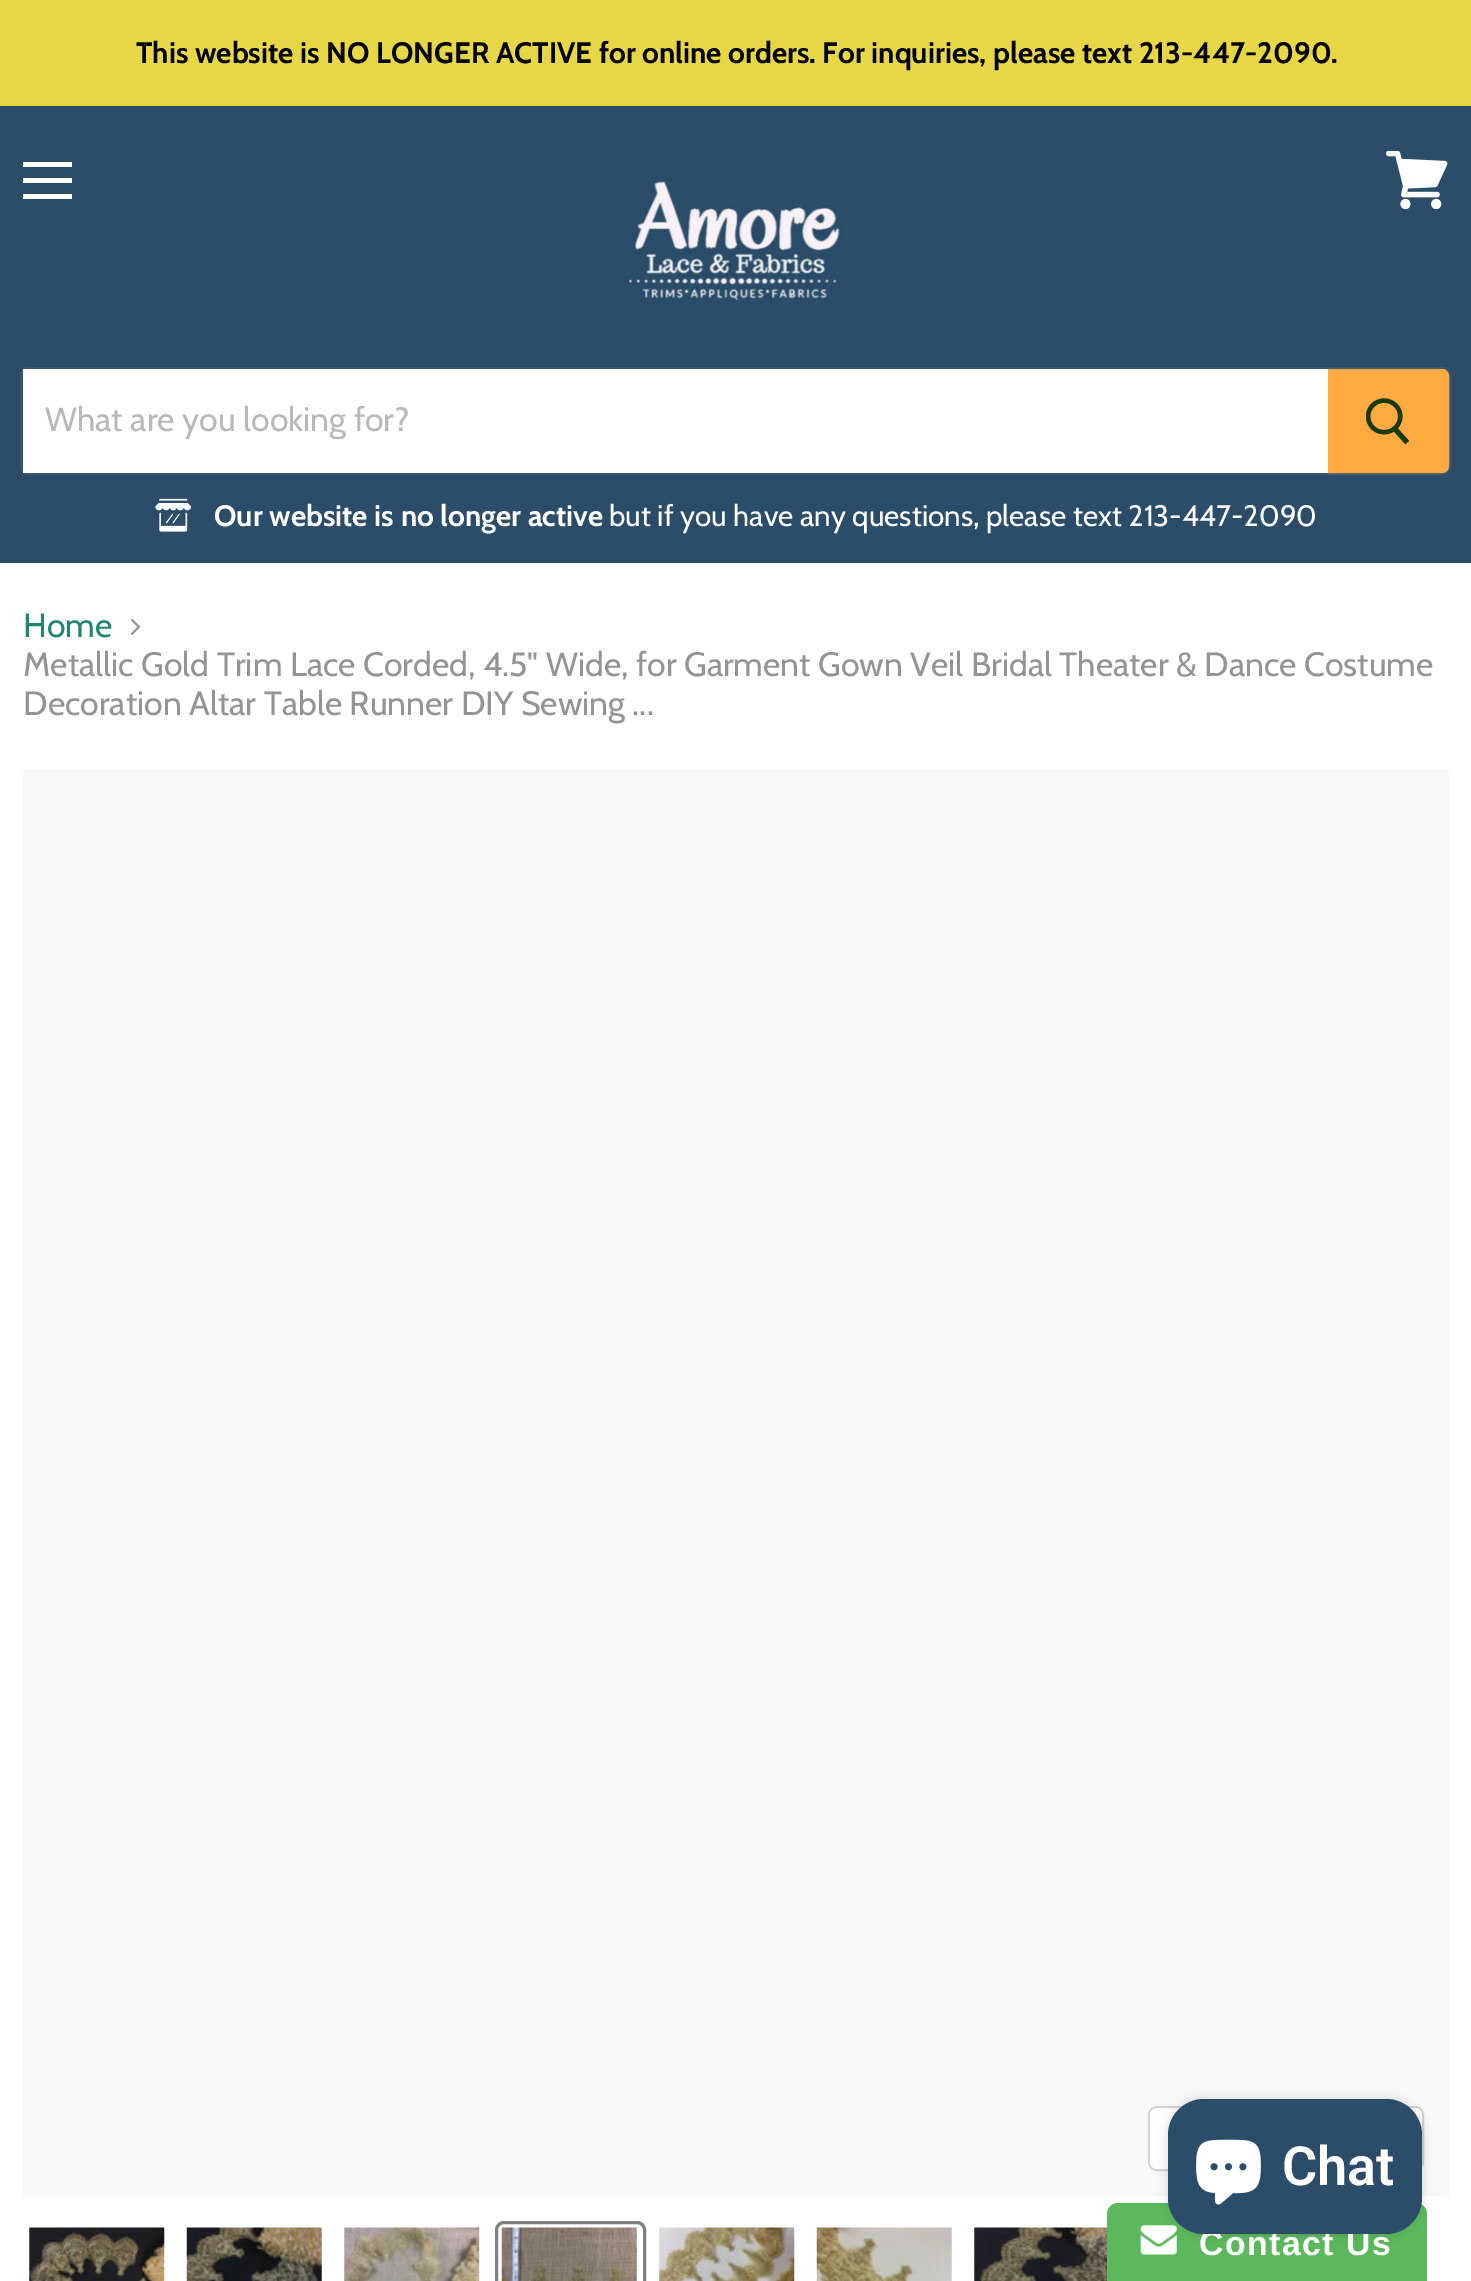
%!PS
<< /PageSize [1471 2281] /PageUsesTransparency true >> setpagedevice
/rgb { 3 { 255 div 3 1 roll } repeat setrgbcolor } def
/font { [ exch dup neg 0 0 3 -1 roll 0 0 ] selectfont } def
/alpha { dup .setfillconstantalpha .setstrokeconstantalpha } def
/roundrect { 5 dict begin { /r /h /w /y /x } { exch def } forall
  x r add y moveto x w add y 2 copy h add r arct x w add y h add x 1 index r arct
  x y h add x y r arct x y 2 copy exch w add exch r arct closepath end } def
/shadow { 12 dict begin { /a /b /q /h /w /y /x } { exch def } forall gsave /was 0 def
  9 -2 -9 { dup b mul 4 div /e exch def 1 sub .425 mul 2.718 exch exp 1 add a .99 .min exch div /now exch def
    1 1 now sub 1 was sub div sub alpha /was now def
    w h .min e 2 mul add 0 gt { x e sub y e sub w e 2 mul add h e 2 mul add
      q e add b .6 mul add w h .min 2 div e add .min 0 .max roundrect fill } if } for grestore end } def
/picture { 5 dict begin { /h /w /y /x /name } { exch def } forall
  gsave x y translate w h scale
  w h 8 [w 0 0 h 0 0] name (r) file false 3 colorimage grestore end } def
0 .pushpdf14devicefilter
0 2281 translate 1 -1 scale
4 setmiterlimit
255 255 255 rgb
0 0 1471 2281 rectfill
[
  [0 0 1471 106 231 214 69]
  [0 106 1471 457 43 77 106]
  [23 162 49 5 255 255 255]
  [23 178 49 5 255 255 255]
  [23 194 49 5 255 255 255]
] { aload pop rgb rectfill } forall
(img/1.rgb) 1386 151 62 58 picture
(img/2.rgb) 627 180 215 124 picture
0.2 alpha
128 128 128 rgb
2 setlinewidth
21 368 1429 106 8 roundrect stroke
1 alpha
255 255 255 rgb
23 369 1305 104 rectfill
255 171 65 rgb
1329 370 moveto 1442 370 lineto 1445.5 370 1448 372.5 1448 376 curveto 1448 466 lineto 1448 469.5 1445.5 472 1442 472 curveto 1329 472 lineto closepath gsave fill grestore
stroke
(img/3.rgb) 1366 398 44 47 picture
(img/4.rgb) 155 498 36 34 picture
(img/5.rgb) 131 618 10 18 picture
248 248 248 rgb
23 770 1426 1426 rectfill
211 211 211 rgb
1149 2107 274 63 8 roundrect stroke
0.9 alpha
255 255 255 rgb
1150 2108 272 61 7 roundrect fill
1 alpha
(img/6.rgb) 29 2227 136 54 picture
(img/7.rgb) 186 2227 136 54 picture
(img/8.rgb) 344 2227 136 54 picture
129 129 129 rgb
3 setlinewidth
496.5 2222.5 148 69 7.5 roundrect stroke
(img/9.rgb) 501 2227 136 54 picture
(img/10.rgb) 659 2227 136 54 picture
(img/11.rgb) 816 2227 136 54 picture
(img/12.rgb) 974 2227 133 54 picture
92 184 92 rgb
1118 2203 moveto 1416 2203 lineto 1422 2203 1427 2208 1427 2214 curveto 1427 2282 lineto 1107 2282 lineto 1107 2214 lineto 1107 2208 1112 2203 1118 2203 curveto closepath fill
(img/14.rgb) 1140 2225 37 30 picture
0 0 0 rgb
1168 2099 254 135 36 5.5 0.15 shadow
/Cabin-Bold 29.55 font
136 63 moveto (This website is NO LONGER ACTIVE for online orders. For inquiries, please text 213-447-2090.) show
gsave
45 398 1260 41 rectclip
/Cabin-Regular 33.75 font
184 184 184 rgb
45 431 moveto (What are you looking for?) show
grestore
255 255 255 rgb
214 526 moveto (Our website is no longer active) show
/Cabin-Regular 29.55 font
609 526 moveto (but if you have any questions, please text 213-447-2090) show
/Cabin-Regular 33.75 font
30 133 112 rgb
23 637 moveto (Home) show
148 148 148 rgb
23 676 moveto (Metallic Gold Trim Lace Corded, 4.5" Wide, for Garment Gown Veil Bridal Theater & Dance Costume) show
23 715 moveto (Decoration Altar Table Runner DIY Sewing ...) show
/LiberationSans-Bold 33.75 font
255 255 255 rgb
1199 2255 moveto 1.5 0 (Contact Us) ashow
43 77 106 rgb
1168 2099 254 135 36 roundrect fill
/Roboto-SemiBold 54 font
255 255 255 rgb
1282 2185 moveto (Chat) show
(img/13.rgb) 1196 2139 65 66 picture
.poppdf14devicefilter showpage
